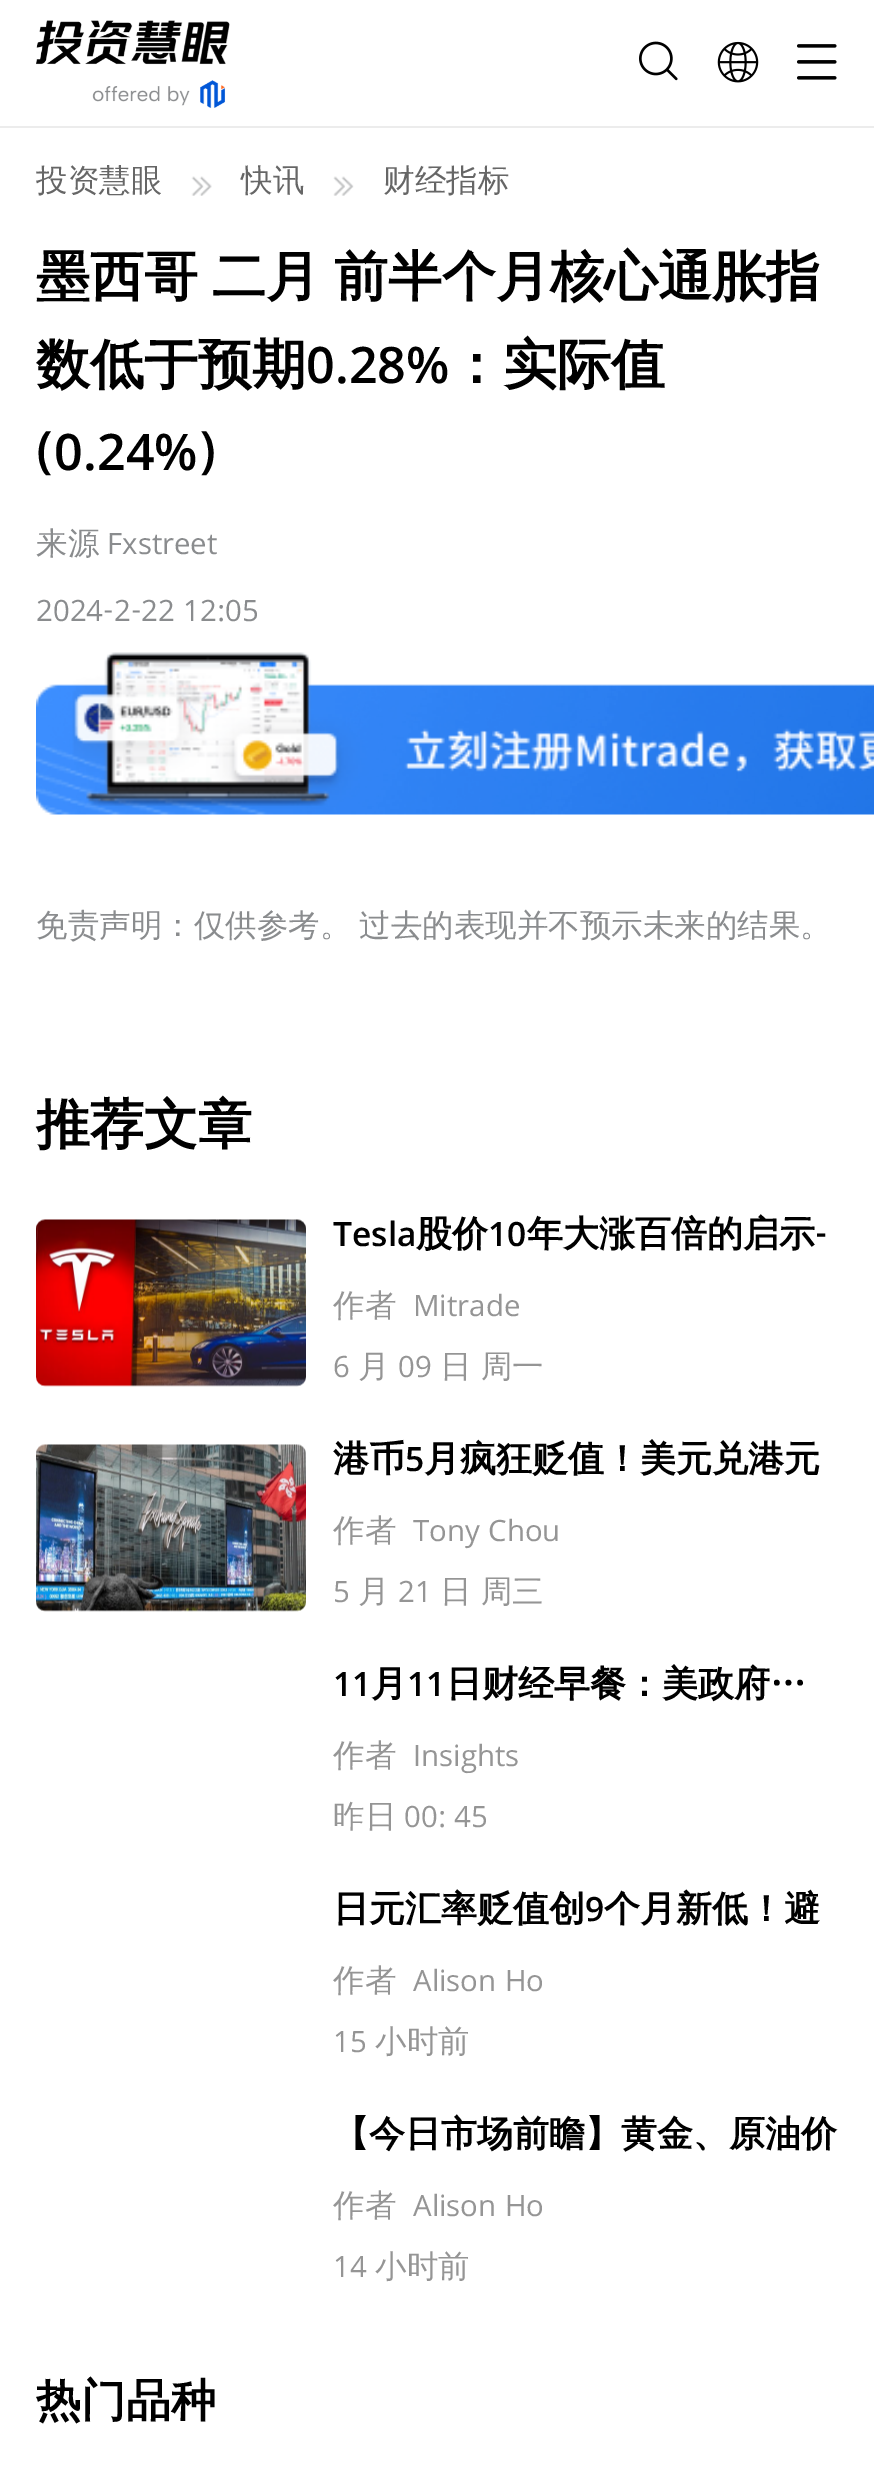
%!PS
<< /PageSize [874 2470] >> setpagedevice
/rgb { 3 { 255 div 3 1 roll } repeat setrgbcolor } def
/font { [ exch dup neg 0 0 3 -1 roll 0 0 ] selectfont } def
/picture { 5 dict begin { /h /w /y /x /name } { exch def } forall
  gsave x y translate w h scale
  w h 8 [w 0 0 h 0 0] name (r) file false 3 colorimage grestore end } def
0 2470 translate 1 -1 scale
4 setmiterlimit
255 255 255 rgb
0 0 874 2470 rectfill
236 236 236 rgb
0 126 874 2 rectfill
(img/1.rgb) 36 20 194 88 picture
(img/2.rgb) 639 41 39 40 picture
(img/3.rgb) 717 41 42 42 picture
(img/4.rgb) 797 44 40 36 picture
(img/5.rgb) 191 176 21 20 picture
(img/6.rgb) 333 176 21 20 picture
(img/7.rgb) 36 652 838 163 picture
(img/8.rgb) 36 1219 270 168 picture
(img/9.rgb) 36 1444 270 168 picture
/WenQuanYiZenHei-Medium 31.5 font
102 102 102 rgb
[
  [(投资慧眼) 36 191]
  [(快讯) 241 191]
  [(财经指标) 383 191]
] { aload pop moveto show } forall
/WenQuanYiZenHei-Bold 54 font
0 0 0 rgb
36 295 moveto -2 0 32 (墨西哥 二月 前半个月核心通胀指) widthshow
36 383 moveto (数低于预期) show
/Khula-SemiBold 54 font
306 383 moveto (0.28%) show
/WenQuanYiZenHei-Bold 54 font
449 383 moveto (：实际值) show
/Khula-SemiBold 54 font
36 470 moveto (\(0.24%\)) show
/WenQuanYiZenHei-Medium 31.5 font
138 140 142 rgb
36 554 moveto (来源) show
/Khula-Regular 31.5 font
107 554 moveto (Fxstreet) show
36 621 moveto (2024-2-22 12:05) show
/WenQuanYiZenHei-Medium 31.5 font
36 936 moveto -1 0 32 (免责声明：仅供参考。 过去的表现并不预示未来的结果。) widthshow
/WenQuanYiZenHei-Bold 54 font
0 0 0 rgb
36 1143 moveto (推荐文章) show
/Khula-SemiBold 36 font
333 1246 moveto (Tesla) show
/WenQuanYiZenHei-Bold 36 font
416 1246 moveto (股价) show
/Khula-SemiBold 36 font
488 1246 moveto (10) show
/WenQuanYiZenHei-Bold 36 font
527 1246 moveto (年大涨百倍的启示) show
/Khula-SemiBold 36 font
815 1246 moveto (-) show
/WenQuanYiZenHei-Medium 31.5 font
149 149 149 rgb
333 1316 moveto (作者) show
/Khula-Regular 31.5 font
413 1316 moveto (Mitrade) show
333 1377 moveto (6) show
/WenQuanYiZenHei-Medium 31.5 font
358 1377 moveto (月) show
/Khula-Regular 31.5 font
398 1377 moveto (09) show
/WenQuanYiZenHei-Medium 31.5 font
440 1377 moveto (日 周一) show
/WenQuanYiZenHei-Bold 36 font
0 0 0 rgb
333 1471 moveto (港币) show
/Khula-SemiBold 36 font
405 1471 moveto (5) show
/WenQuanYiZenHei-Bold 36 font
424 1471 moveto (月疯狂贬值！美元兑港元) show
/WenQuanYiZenHei-Medium 31.5 font
149 149 149 rgb
333 1541 moveto (作者) show
/Khula-Regular 31.5 font
413 1541 moveto (Tony Chou) show
333 1602 moveto (5) show
/WenQuanYiZenHei-Medium 31.5 font
358 1602 moveto (月) show
/Khula-Regular 31.5 font
398 1602 moveto (21) show
/WenQuanYiZenHei-Medium 31.5 font
440 1602 moveto (日 周三) show
/Khula-SemiBold 36 font
0 0 0 rgb
333 1696 moveto (11) show
/WenQuanYiZenHei-Bold 36 font
371 1696 moveto (月) show
/Khula-SemiBold 36 font
407 1696 moveto (11) show
/WenQuanYiZenHei-Bold 36 font
446 1696 moveto (日财经早餐：美政府…) show
/WenQuanYiZenHei-Medium 31.5 font
149 149 149 rgb
333 1766 moveto (作者) show
/Khula-Regular 31.5 font
413 1766 moveto (Insights) show
/WenQuanYiZenHei-Medium 31.5 font
333 1827 moveto (昨日) show
/Khula-Regular 31.5 font
404 1827 moveto (00: 45) show
/WenQuanYiZenHei-Bold 36 font
0 0 0 rgb
333 1921 moveto (日元汇率贬值创) show
/Khula-SemiBold 36 font
585 1921 moveto (9) show
/WenQuanYiZenHei-Bold 36 font
604 1921 moveto (个月新低！避) show
/WenQuanYiZenHei-Medium 31.5 font
149 149 149 rgb
333 1991 moveto (作者) show
/Khula-Regular 31.5 font
413 1991 moveto (Alison Ho) show
333 2052 moveto (15) show
/WenQuanYiZenHei-Medium 31.5 font
375 2052 moveto (小时前) show
/WenQuanYiZenHei-Bold 36 font
0 0 0 rgb
333 2146 moveto (【今日市场前瞻】黄金、原油价) show
/WenQuanYiZenHei-Medium 31.5 font
149 149 149 rgb
333 2216 moveto (作者) show
/Khula-Regular 31.5 font
413 2216 moveto (Alison Ho) show
333 2277 moveto (14) show
/WenQuanYiZenHei-Medium 31.5 font
375 2277 moveto (小时前) show
/WenQuanYiZenHei-Bold 45 font
0 0 0 rgb
36 2416 moveto (热门品种) show
showpage
